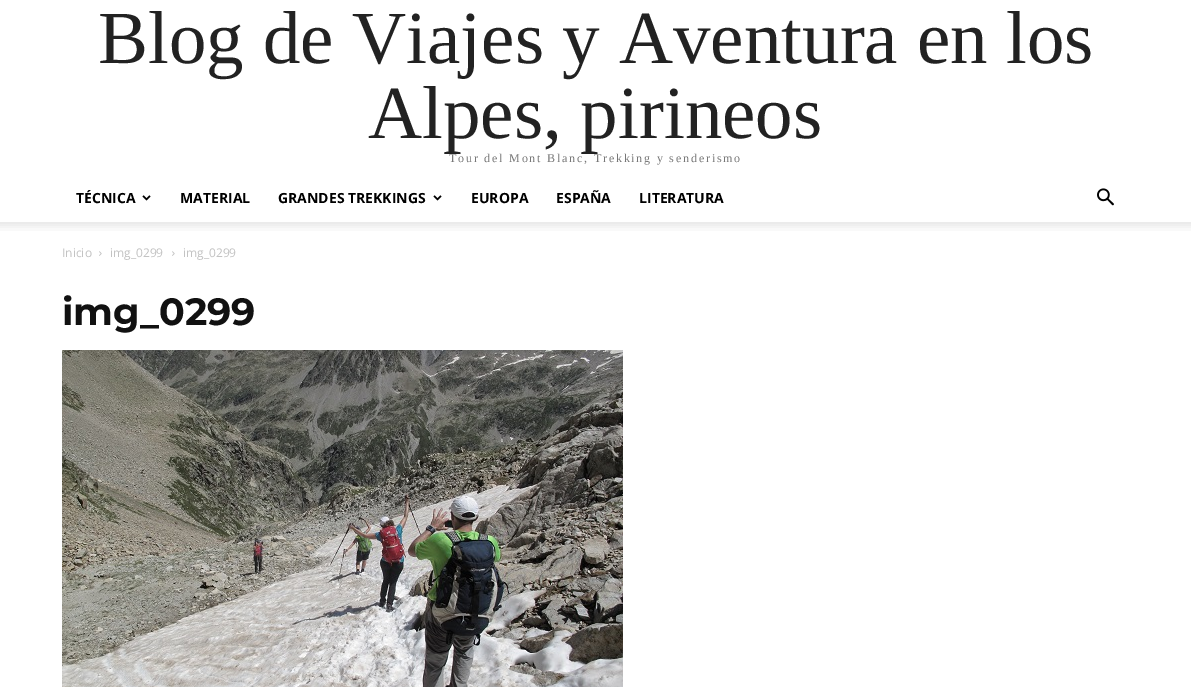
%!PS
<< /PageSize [1191 687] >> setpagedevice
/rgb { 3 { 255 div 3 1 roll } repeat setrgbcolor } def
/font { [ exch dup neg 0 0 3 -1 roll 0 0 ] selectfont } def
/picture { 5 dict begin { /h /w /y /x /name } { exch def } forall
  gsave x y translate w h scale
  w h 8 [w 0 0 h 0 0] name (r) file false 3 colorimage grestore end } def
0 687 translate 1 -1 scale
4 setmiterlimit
255 255 255 rgb
0 0 1191 687 rectfill
(img/1.rgb) 142 195 9 6 picture
(img/1.rgb) 433 195 9 6 picture
(img/2.rgb) 1097 188 17 18 picture
(img/3.rgb) 0 222 1191 9 picture
(img/4.rgb) 99 251 3 5 picture
(img/4.rgb) 172 251 3 5 picture
(img/5.rgb) 62 350 561 337 picture
/LiberationSerif-Regular 75 font
34 34 34 rgb
98 63 moveto (Blog de Viajes y Aventura en los) show
368 138 moveto (Alpes, pirineos) show
/LiberationSerif-Regular 12 font
119 119 119 rgb
449 162 moveto 1.8 0 (Tour del Mont Blanc, Trekking y senderismo) ashow
/OpenSans-Bold 14 font
0 0 0 rgb
[
  [(TÉCNICA) 76 203]
  [(MATERIAL) 180 203]
  [(GRANDES TREKKINGS) 278 203]
  [(EUROPA) 471 203]
  [(ESPAÑA) 556 203]
  [(LITERATURA) 639 203]
] { aload pop moveto show } forall
/OpenSans-Regular 12 font
195 195 195 rgb
[
  [(Inicio) 62 257]
  [(img_0299) 110 257]
  [(img_0299) 183 257]
] { aload pop moveto show } forall
/Montserrat-Bold 38 font
17 17 17 rgb
62 325 moveto (img_0299) show
showpage
